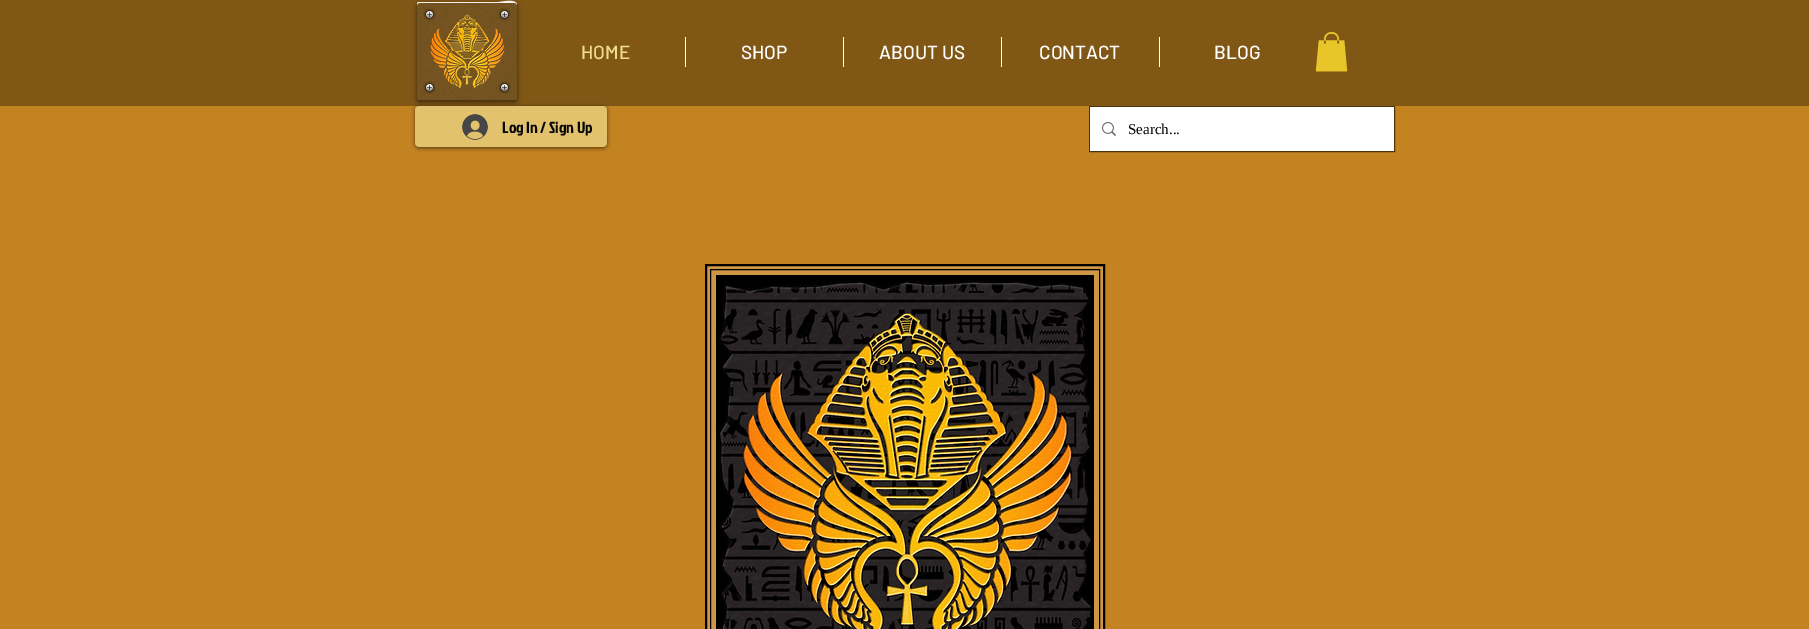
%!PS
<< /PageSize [1809 629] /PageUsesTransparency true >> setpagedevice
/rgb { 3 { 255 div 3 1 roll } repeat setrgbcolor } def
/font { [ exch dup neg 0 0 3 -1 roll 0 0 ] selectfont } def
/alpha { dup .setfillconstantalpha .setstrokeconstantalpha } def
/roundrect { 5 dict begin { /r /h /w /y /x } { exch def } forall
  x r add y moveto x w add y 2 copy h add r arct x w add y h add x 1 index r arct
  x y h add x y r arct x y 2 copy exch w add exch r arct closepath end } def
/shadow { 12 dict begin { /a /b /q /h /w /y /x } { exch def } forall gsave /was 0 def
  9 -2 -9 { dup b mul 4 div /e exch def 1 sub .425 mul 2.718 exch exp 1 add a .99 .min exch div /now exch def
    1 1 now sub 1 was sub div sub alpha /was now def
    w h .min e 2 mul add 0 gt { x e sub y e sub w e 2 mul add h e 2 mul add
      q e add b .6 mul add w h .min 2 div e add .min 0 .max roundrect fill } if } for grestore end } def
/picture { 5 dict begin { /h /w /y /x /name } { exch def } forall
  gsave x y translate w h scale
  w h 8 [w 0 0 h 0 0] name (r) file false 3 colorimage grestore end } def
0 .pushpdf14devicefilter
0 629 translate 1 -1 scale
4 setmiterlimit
196 131 33 rgb
0 0 1809 629 rectfill
129 87 22 rgb
0 0 1809 106 rectfill
gsave
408 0 moveto 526 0 lineto 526 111 lineto 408 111 lineto closepath 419 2 moveto 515 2 lineto 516 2 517 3 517 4 curveto 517 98 lineto 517 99 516 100 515 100 curveto 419 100 lineto 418 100 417 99 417 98 curveto 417 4 lineto 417 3 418 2 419 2 curveto closepath eoclip newpath
0 0 0 rgb
417 4 100 98 2 2.5 0.53 shadow
grestore
0.19 alpha
70 70 70 rgb
417 2 100 98 2 roundrect fill
1 alpha
(img/1.rgb) 417 2 100 98 picture
0.92 alpha
255 255 255 rgb
419 3 moveto 418 3 417 4 417 5 curveto 417 4 417 2 419 2 curveto 499 2 lineto 500 2 517 -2 517 5 curveto 517 4 516 3 515 3 curveto closepath fill
1 alpha
(img/3.rgb) 430 14 74 74 picture
(img/2.rgb) 423 8 13 13 picture
(img/4.rgb) 498 8 13 13 picture
(img/5.rgb) 423 81 13 13 picture
(img/6.rgb) 498 81 13 13 picture
[
  [685 37 1 30 255 255 255]
  [843 37 1 30 255 255 255]
  [1001 37 1 30 255 255 255]
  [1159 37 1 30 255 255 255]
] { aload pop rgb rectfill } forall
(img/7.rgb) 1315 32 33 40 picture
gsave
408 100 moveto 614 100 lineto 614 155 lineto 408 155 lineto closepath 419 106 moveto 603 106 lineto 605 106 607 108 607 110 curveto 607 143 lineto 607 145 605 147 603 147 curveto 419 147 lineto 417 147 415 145 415 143 curveto 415 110 lineto 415 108 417 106 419 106 curveto closepath eoclip newpath
0 0 0 rgb
415 107 192 41 4 2 0.6 shadow
grestore
0.7 alpha
239 221 141 rgb
415 106 192 41 4 roundrect fill
1 alpha
(img/8.rgb) 462 114 26 26 picture
78 52 13 rgb
1089.5 106.5 305 45 rectstroke
255 255 255 rgb
1090 107 304 44 rectfill
(img/9.rgb) 1102 122 14 14 picture
205 151 69 rgb
706 265 moveto 1104 265 lineto 1104 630 lineto 706 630 lineto closepath gsave fill grestore
0 0 0 rgb
2 setlinewidth
stroke
(img/10.rgb) 716 275 378 354 picture
1 setlinewidth
710.5 269.5 389 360 rectstroke
/Barlow-Medium 19 font
239 221 141 rgb
581 59 moveto (HOME) show
255 255 255 rgb
[
  [(SHOP) 741 59]
  [(ABOUT US) 879 59]
  [(CONTACT) 1039 59]
  [(BLOG) 1214 59]
] { aload pop moveto show } forall
/JockeyOne-Regular 16 font
8 8 8 rgb
502 133 moveto (Log In / Sign Up) show
/LiberationSerif-Regular 15 font
0 0 0 rgb
1128 134 moveto (Search...) show
.poppdf14devicefilter showpage
